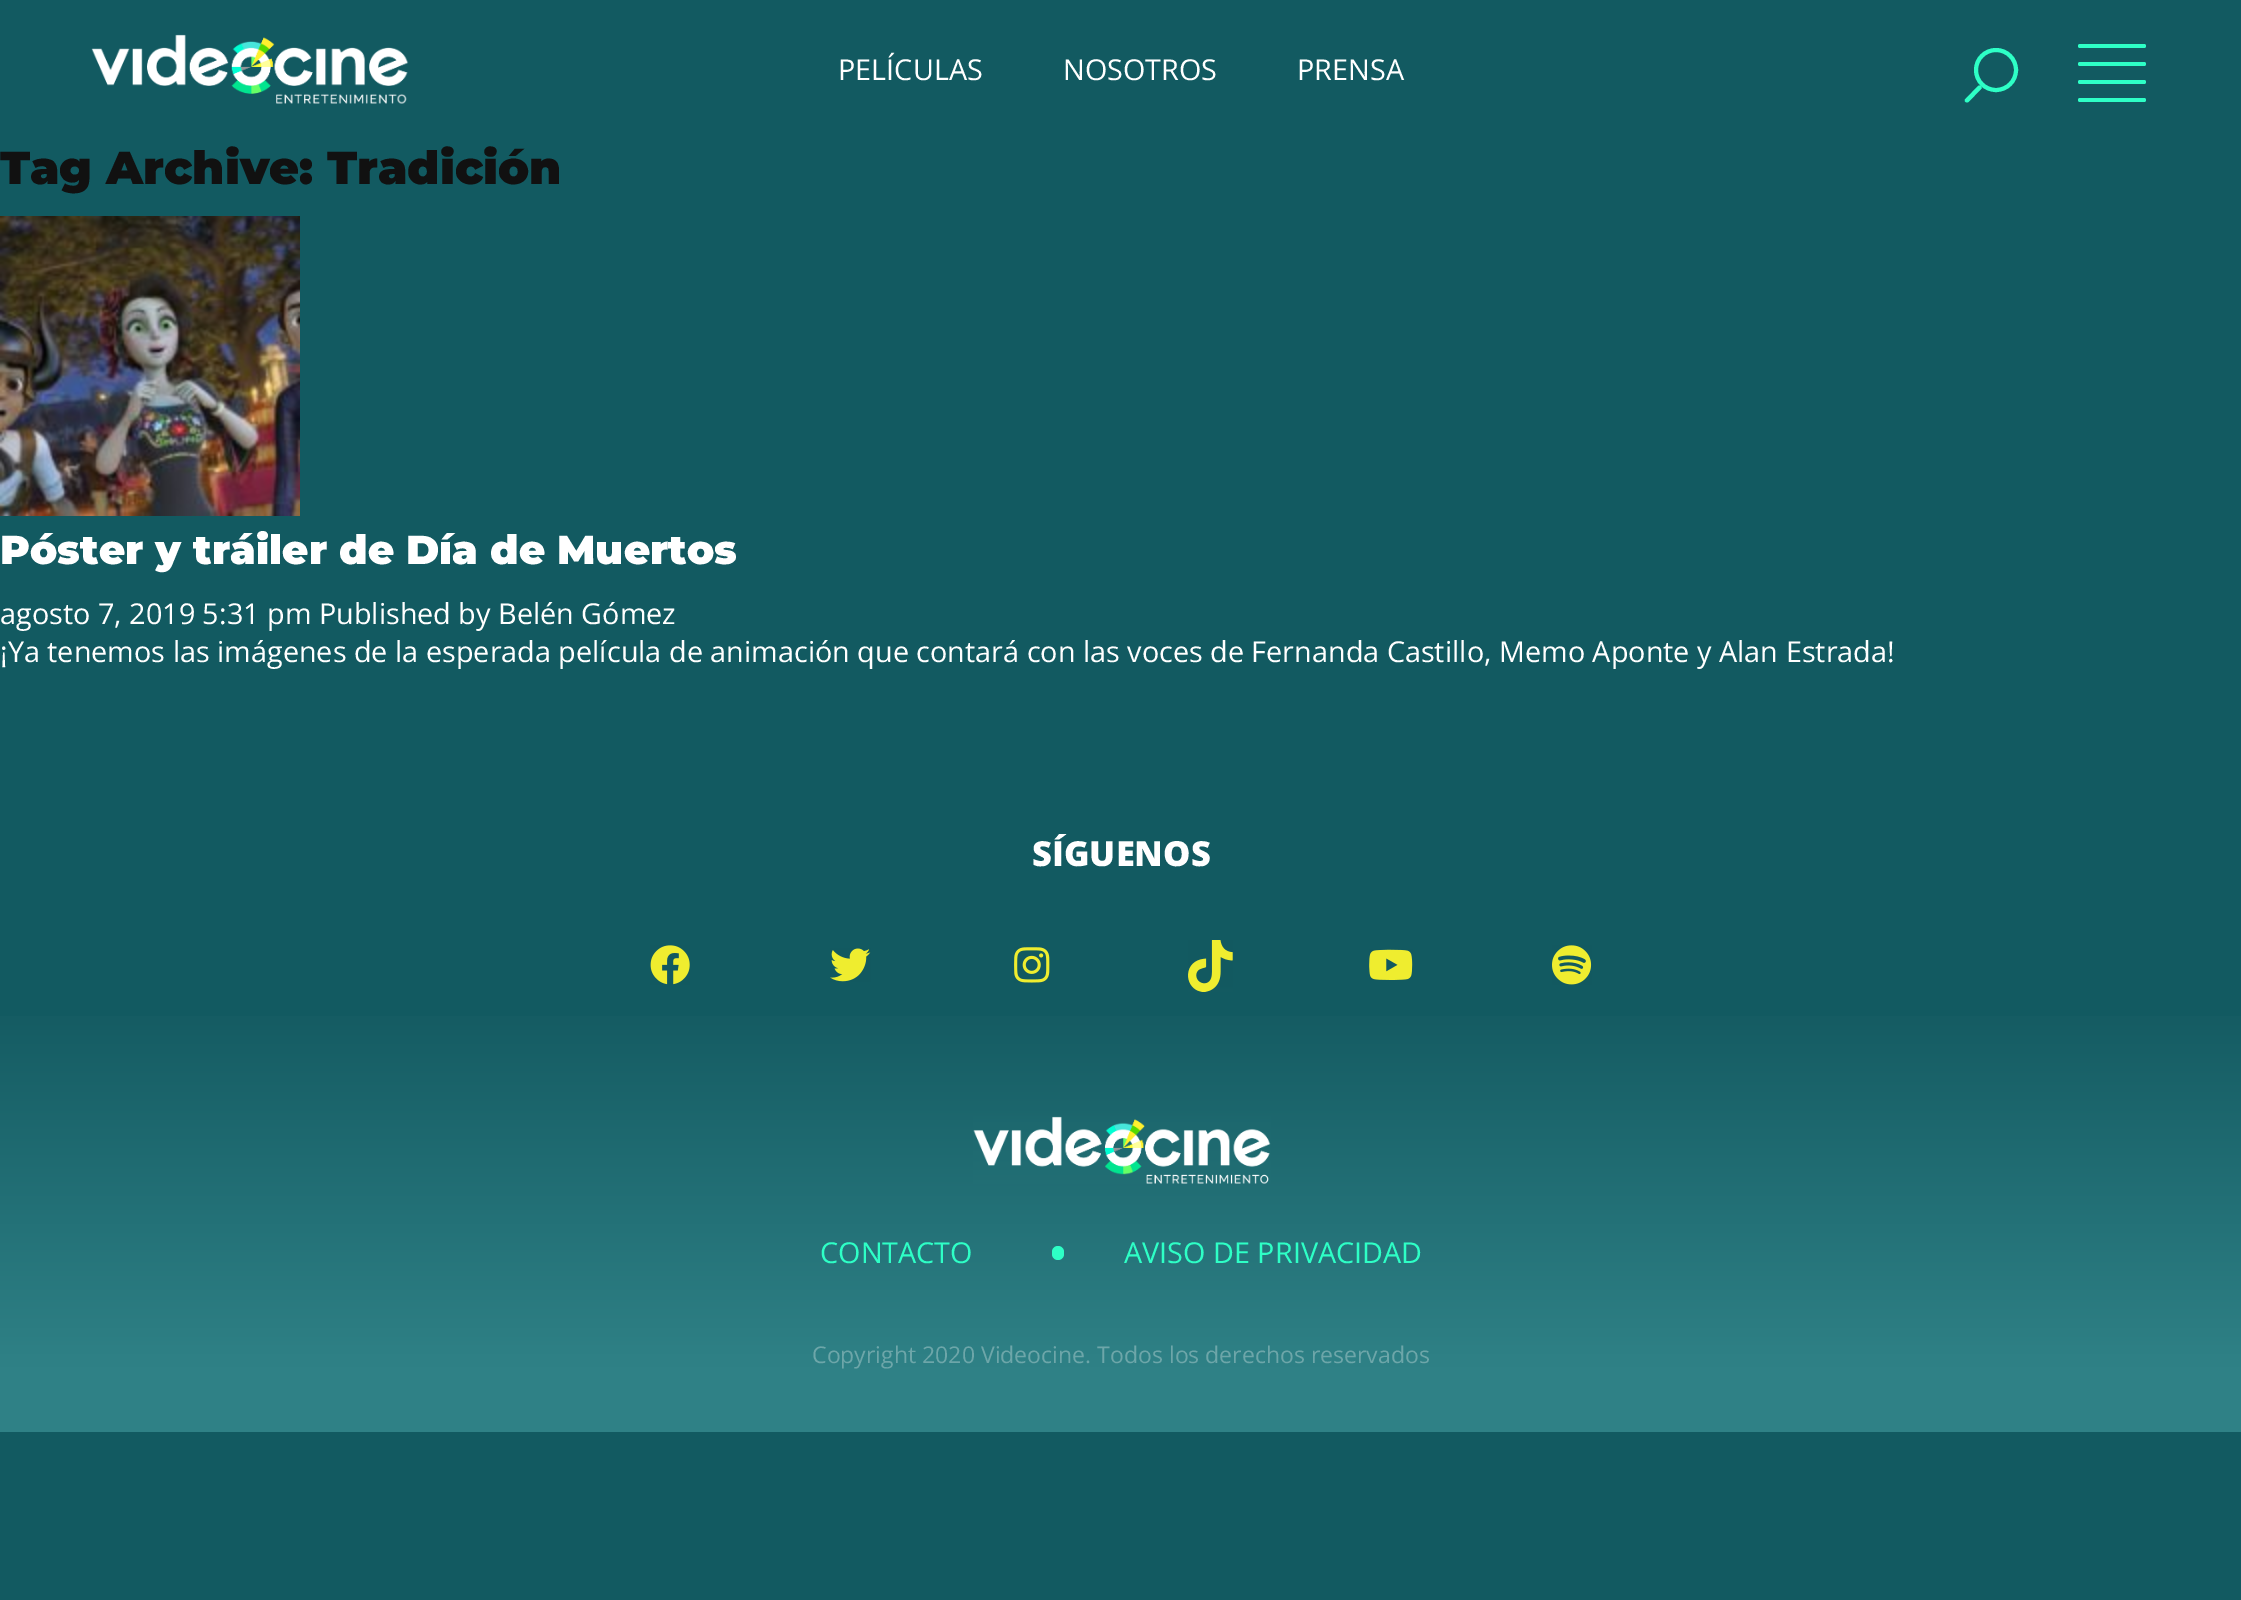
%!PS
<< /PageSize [2241 1600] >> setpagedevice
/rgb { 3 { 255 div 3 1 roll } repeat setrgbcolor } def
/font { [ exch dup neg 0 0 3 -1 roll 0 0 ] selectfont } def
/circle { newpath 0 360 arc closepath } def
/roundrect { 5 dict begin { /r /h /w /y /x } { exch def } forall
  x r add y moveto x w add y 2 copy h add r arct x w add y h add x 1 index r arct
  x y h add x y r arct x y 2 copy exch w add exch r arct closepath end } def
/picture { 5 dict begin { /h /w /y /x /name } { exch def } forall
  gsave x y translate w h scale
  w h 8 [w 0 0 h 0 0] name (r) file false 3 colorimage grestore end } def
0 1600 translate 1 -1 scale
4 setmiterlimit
18 90 97 rgb
0 0 2241 1600 rectfill
(img/1.rgb) 91 34 318 70 picture
46 255 198 rgb
1965.5 99 moveto 1978 86 lineto 1979 85.5 1980.5 85.5 1981 86 curveto 1982 87 1982 88.5 1981 89 curveto 1968.5 102 lineto 1967.5 102.5 1966.5 102.5 1965.5 102 curveto 1964.5 101 1964.5 99.5 1965.5 99 curveto closepath fill
4 setlinewidth
1996 70 20 circle stroke
2078 44 68 4 2 roundrect fill
2078 62 68 4 2 roundrect fill
2078 80 68 4 2 roundrect fill
2078 98 68 4 2 roundrect fill
(img/2.rgb) 0 216 300 300 picture
gsave 0 1016 moveto 2241 1016 lineto 2241 1432 lineto 0 1432 lineto closepath clip newpath
<< /ShadingType 2 /ColorSpace /DeviceRGB /Coords [1121 790 1121 1432] /Extend [true true] /Function << /FunctionType 3 /Domain [0 1] /Functions [<< /FunctionType 2 /Domain [0 1] /C0 [0.071 0.349 0.376] /C1 [0.071 0.349 0.376] /N 1 >> << /FunctionType 2 /Domain [0 1] /C0 [0.071 0.349 0.376] /C1 [0.184 0.506 0.525] /N 1 >> << /FunctionType 2 /Domain [0 1] /C0 [0.184 0.506 0.525] /C1 [0.184 0.506 0.525] /N 1 >>] /Bounds [0.3 0.9] /Encode [0 1 0 1 0 1] >> >> shfill grestore
(img/3.rgb) 650 945 40 40 picture
(img/4.rgb) 830 948 41 34 picture
(img/5.rgb) 1014 947 36 36 picture
(img/6.rgb) 1188 940 45 52 picture
(img/7.rgb) 1369 949 44 31 picture
(img/8.rgb) 1552 945 40 40 picture
(img/9.rgb) 973 1116 298 68 picture
1052 1246 12 14 6 roundrect fill
/OpenSans-Regular 28.8 font
255 255 255 rgb
[
  [(PELÍCULAS) 838 80]
  [(NOSOTROS) 1063 80]
  [(PRENSA) 1297 80]
] { aload pop moveto show } forall
/Montserrat-Black 46 font
17 17 17 rgb
0 184 moveto (Tag Archive: Tradición) show
/Montserrat-Black 40.3 font
255 255 255 rgb
0 564 moveto (Póster y tráiler de Día de Muertos) show
/OpenSans-Regular 28.8 font
0 624 moveto (agosto 7, 2019 5:31 pm Published by Belén Gómez) show
0 662 moveto (¡Ya tenemos las imágenes de la esperada película de animación que contará con las voces de Fernanda Castillo, Memo Aponte y Alan Estrada!) show
/OpenSans-ExtraBold 34.5 font
1032 866 moveto (SÍGUENOS) show
/OpenSans-Regular 28.8 font
46 255 198 rgb
820 1263 moveto (CONTACTO) show
1124 1263 moveto (AVISO DE PRIVACIDAD) show
/OpenSans-Regular 23.05 font
109 166 169 rgb
812 1363 moveto (Copyright 2020 Videocine. Todos los derechos reservados) show
showpage
